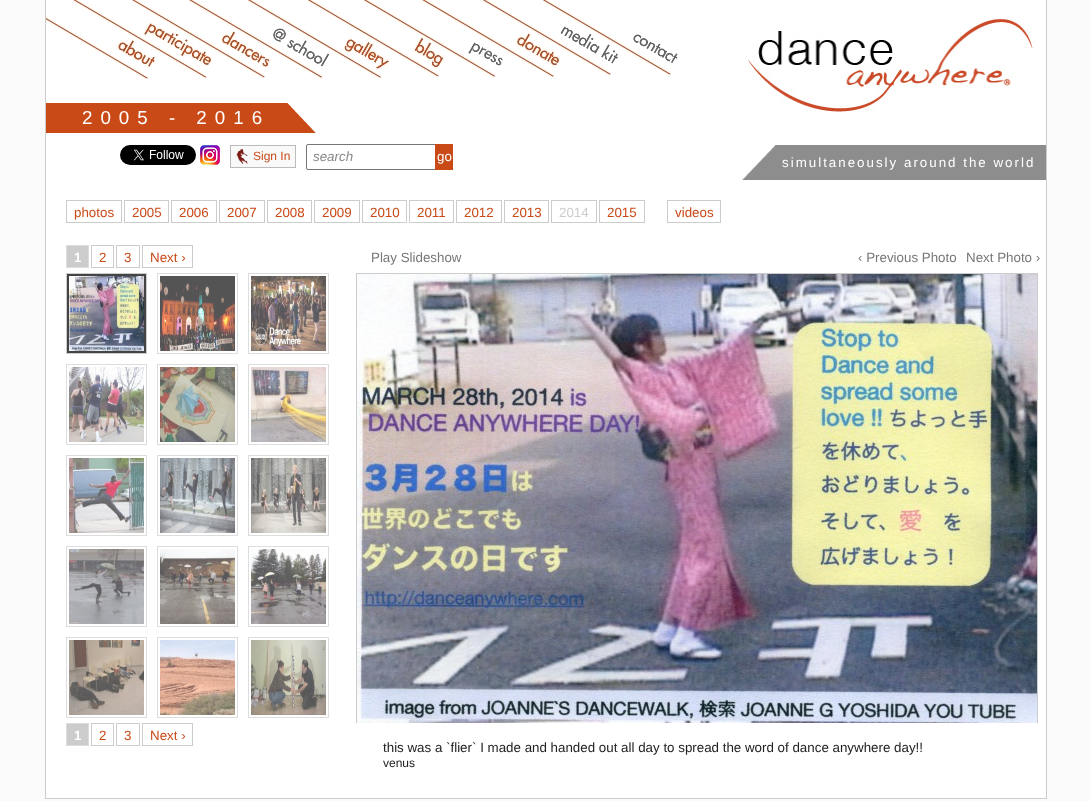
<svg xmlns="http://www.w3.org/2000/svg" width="1091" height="801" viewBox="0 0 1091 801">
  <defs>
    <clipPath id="clip1"><rect x="346" y="273" width="700" height="450"/></clipPath>
  </defs>
  <rect width="100%" height="100%" fill="#fbfbfb"/>
  <rect x="46" y="0" width="1000" height="798" fill="#ffffff"/>
  <rect x="1046" y="0" width="1" height="799" fill="#cccccc"/>
  <rect x="45" y="798" width="1002" height="1" fill="#cccccc"/>
  <rect x="45" y="0" width="1" height="799" fill="#cccccc"/>
  <image x="46" y="0" width="632" height="80" href="img1.png"/>
  <image x="748" y="19" width="288" height="93" href="img2.png"/>
  <rect x="46" y="103" width="270" height="30" fill="#c94917"/>
  <image x="287" y="103" width="29" height="30" href="img3.png"/>
  <text x="82" y="124" font-family="Liberation Sans" font-size="18.75" letter-spacing="8" fill="#ffffff">2005 - 2016</text>
  <image x="120" y="145" width="76" height="20" href="img4.png"/>
  <image x="200" y="145" width="20" height="20" href="img5.png"/>
  <rect x="230.5" y="145.5" width="65" height="22" fill="#f9f9f9" stroke="#bbbbbb"/>
  <image x="236" y="149" width="12" height="15" href="img6.png"/>
  <text x="253" y="160" font-family="Liberation Sans" font-size="12" fill="#c94917">Sign In</text>
  <rect x="306.5" y="144.5" width="131" height="25" rx="1.5" fill="none" stroke="#767676"/>
  <text x="313" y="161" font-family="Liberation Sans" font-size="13.35" font-style="italic" fill="#888888">search</text>
  <rect x="435" y="144" width="18" height="26" fill="#c94917"/>
  <text x="437" y="161" font-family="Liberation Sans" font-size="13.35" fill="#ffffff">go</text>
  <rect x="742" y="145" width="304" height="35" fill="#8d8d8d"/>
  <image x="742" y="145" width="33" height="35" href="img7.png"/>
  <text x="782" y="167" font-family="Liberation Sans" font-size="13.35" letter-spacing="2" fill="#ffffff">simultaneously around the world</text>
  <rect x="66.5" y="200.5" width="55" height="22" fill="none" stroke="#cccccc"/>
  <text x="74" y="217" font-family="Liberation Sans" font-size="13.35" fill="#c94917">photos</text>
  <rect x="124.5" y="200.5" width="44" height="22" fill="none" stroke="#cccccc"/>
  <text x="132" y="217" font-family="Liberation Sans" font-size="13.35" fill="#c94917">2005</text>
  <rect x="171.5" y="200.5" width="45" height="22" fill="none" stroke="#cccccc"/>
  <text x="179" y="217" font-family="Liberation Sans" font-size="13.35" fill="#c94917">2006</text>
  <rect x="219.5" y="200.5" width="45" height="22" fill="none" stroke="#cccccc"/>
  <text x="227" y="217" font-family="Liberation Sans" font-size="13.35" fill="#c94917">2007</text>
  <rect x="267.5" y="200.5" width="44" height="22" fill="none" stroke="#cccccc"/>
  <text x="275" y="217" font-family="Liberation Sans" font-size="13.35" fill="#c94917">2008</text>
  <rect x="314.5" y="200.5" width="45" height="22" fill="none" stroke="#cccccc"/>
  <text x="322" y="217" font-family="Liberation Sans" font-size="13.35" fill="#c94917">2009</text>
  <rect x="362.5" y="200.5" width="44" height="22" fill="none" stroke="#cccccc"/>
  <text x="370" y="217" font-family="Liberation Sans" font-size="13.35" fill="#c94917">2010</text>
  <rect x="409.5" y="200.5" width="44" height="22" fill="none" stroke="#cccccc"/>
  <text x="417" y="217" font-family="Liberation Sans" font-size="13.35" fill="#c94917">2011</text>
  <rect x="456.5" y="200.5" width="45" height="22" fill="none" stroke="#cccccc"/>
  <text x="464" y="217" font-family="Liberation Sans" font-size="13.35" fill="#c94917">2012</text>
  <rect x="504.5" y="200.5" width="44" height="22" fill="none" stroke="#cccccc"/>
  <text x="512" y="217" font-family="Liberation Sans" font-size="13.35" fill="#c94917">2013</text>
  <rect x="551.5" y="200.5" width="45" height="22" fill="none" stroke="#cccccc"/>
  <text x="559" y="217" font-family="Liberation Sans" font-size="13.35" fill="#cccccc">2014</text>
  <rect x="599.5" y="200.5" width="45" height="22" fill="none" stroke="#cccccc"/>
  <text x="607" y="217" font-family="Liberation Sans" font-size="13.35" fill="#c94917">2015</text>
  <rect x="667.5" y="200.5" width="53" height="22" fill="none" stroke="#cccccc"/>
  <text x="675" y="217" font-family="Liberation Sans" font-size="13.35" fill="#c94917">videos</text>
  <rect x="66.5" y="245.5" width="22" height="22" fill="#cccccc" stroke="#dddddd"/>
  <text x="74" y="262" font-family="Liberation Sans" font-size="13.35" font-weight="bold" fill="#ffffff">1</text>
  <rect x="91.5" y="245.5" width="22" height="22" fill="none" stroke="#cccccc"/>
  <text x="99" y="262" font-family="Liberation Sans" font-size="13.35" fill="#c94917">2</text>
  <rect x="116.5" y="245.5" width="23" height="22" fill="none" stroke="#cccccc"/>
  <text x="124" y="262" font-family="Liberation Sans" font-size="13.35" fill="#c94917">3</text>
  <rect x="142.5" y="245.5" width="50" height="22" fill="none" stroke="#cccccc"/>
  <text x="150" y="262" font-family="Liberation Sans" font-size="13.35" fill="#c94917">Next ›</text>
  <rect x="66.5" y="273.5" width="80" height="80" fill="#444444" stroke="#cccccc"/>
  <image x="69" y="276" width="75" height="75" href="img8.png"/>
  <rect x="157.5" y="273.5" width="80" height="80" fill="none" stroke="#dddddd"/>
  <image x="160" y="276" width="75" height="75" href="img9.png"/>
  <rect x="248.5" y="273.5" width="80" height="80" fill="none" stroke="#dddddd"/>
  <image x="251" y="276" width="75" height="75" href="img10.png"/>
  <rect x="66.5" y="364.5" width="80" height="80" fill="none" stroke="#dddddd"/>
  <image x="69" y="367" width="75" height="75" href="img11.png"/>
  <rect x="157.5" y="364.5" width="80" height="80" fill="none" stroke="#dddddd"/>
  <image x="160" y="367" width="75" height="75" href="img12.png"/>
  <rect x="248.5" y="364.5" width="80" height="80" fill="none" stroke="#dddddd"/>
  <image x="251" y="367" width="75" height="75" href="img13.png"/>
  <rect x="66.5" y="455.5" width="80" height="80" fill="none" stroke="#dddddd"/>
  <image x="69" y="458" width="75" height="75" href="img14.png"/>
  <rect x="157.5" y="455.5" width="80" height="80" fill="none" stroke="#dddddd"/>
  <image x="160" y="458" width="75" height="75" href="img15.png"/>
  <rect x="248.5" y="455.5" width="80" height="80" fill="none" stroke="#dddddd"/>
  <image x="251" y="458" width="75" height="75" href="img16.png"/>
  <rect x="66.5" y="546.5" width="80" height="80" fill="none" stroke="#dddddd"/>
  <image x="69" y="549" width="75" height="75" href="img17.png"/>
  <rect x="157.5" y="546.5" width="80" height="80" fill="none" stroke="#dddddd"/>
  <image x="160" y="549" width="75" height="75" href="img18.png"/>
  <rect x="248.5" y="546.5" width="80" height="80" fill="none" stroke="#dddddd"/>
  <image x="251" y="549" width="75" height="75" href="img19.png"/>
  <rect x="66.5" y="637.5" width="80" height="80" fill="none" stroke="#dddddd"/>
  <image x="69" y="640" width="75" height="75" href="img20.png"/>
  <rect x="157.5" y="637.5" width="80" height="80" fill="none" stroke="#dddddd"/>
  <image x="160" y="640" width="75" height="75" href="img21.png"/>
  <rect x="248.5" y="637.5" width="80" height="80" fill="none" stroke="#dddddd"/>
  <image x="251" y="640" width="75" height="75" href="img22.png"/>
  <rect x="66.5" y="723.5" width="22" height="22" fill="#cccccc" stroke="#dddddd"/>
  <text x="74" y="740" font-family="Liberation Sans" font-size="13.35" font-weight="bold" fill="#ffffff">1</text>
  <rect x="91.5" y="723.5" width="22" height="22" fill="none" stroke="#cccccc"/>
  <text x="99" y="740" font-family="Liberation Sans" font-size="13.35" fill="#c94917">2</text>
  <rect x="116.5" y="723.5" width="23" height="22" fill="none" stroke="#cccccc"/>
  <text x="124" y="740" font-family="Liberation Sans" font-size="13.35" fill="#c94917">3</text>
  <rect x="142.5" y="723.5" width="50" height="22" fill="none" stroke="#cccccc"/>
  <text x="150" y="740" font-family="Liberation Sans" font-size="13.35" fill="#c94917">Next ›</text>
  <text x="371" y="262" font-family="Liberation Sans" font-size="13.35" fill="#777777">Play Slideshow</text>
  <text x="858" y="262" font-family="Liberation Sans" font-size="13.35" fill="#777777">‹ Previous Photo</text>
  <text x="966" y="262" font-family="Liberation Sans" font-size="13.35" fill="#777777">Next Photo ›</text>
  <g clip-path="url(#clip1)">
    <rect x="356.5" y="273.5" width="681" height="451" fill="none" stroke="#cccccc"/>
  </g>
  <image x="357" y="274" width="680" height="449" href="img23.png"/>
  <text x="383" y="752" font-family="Liberation Sans" font-size="13.35" fill="#222222">this was a `flier` I made and handed out all day to spread the word of dance anywhere day!!</text>
  <text x="383" y="767" font-family="Liberation Sans" font-size="12" fill="#222222">venus</text>
</svg>
